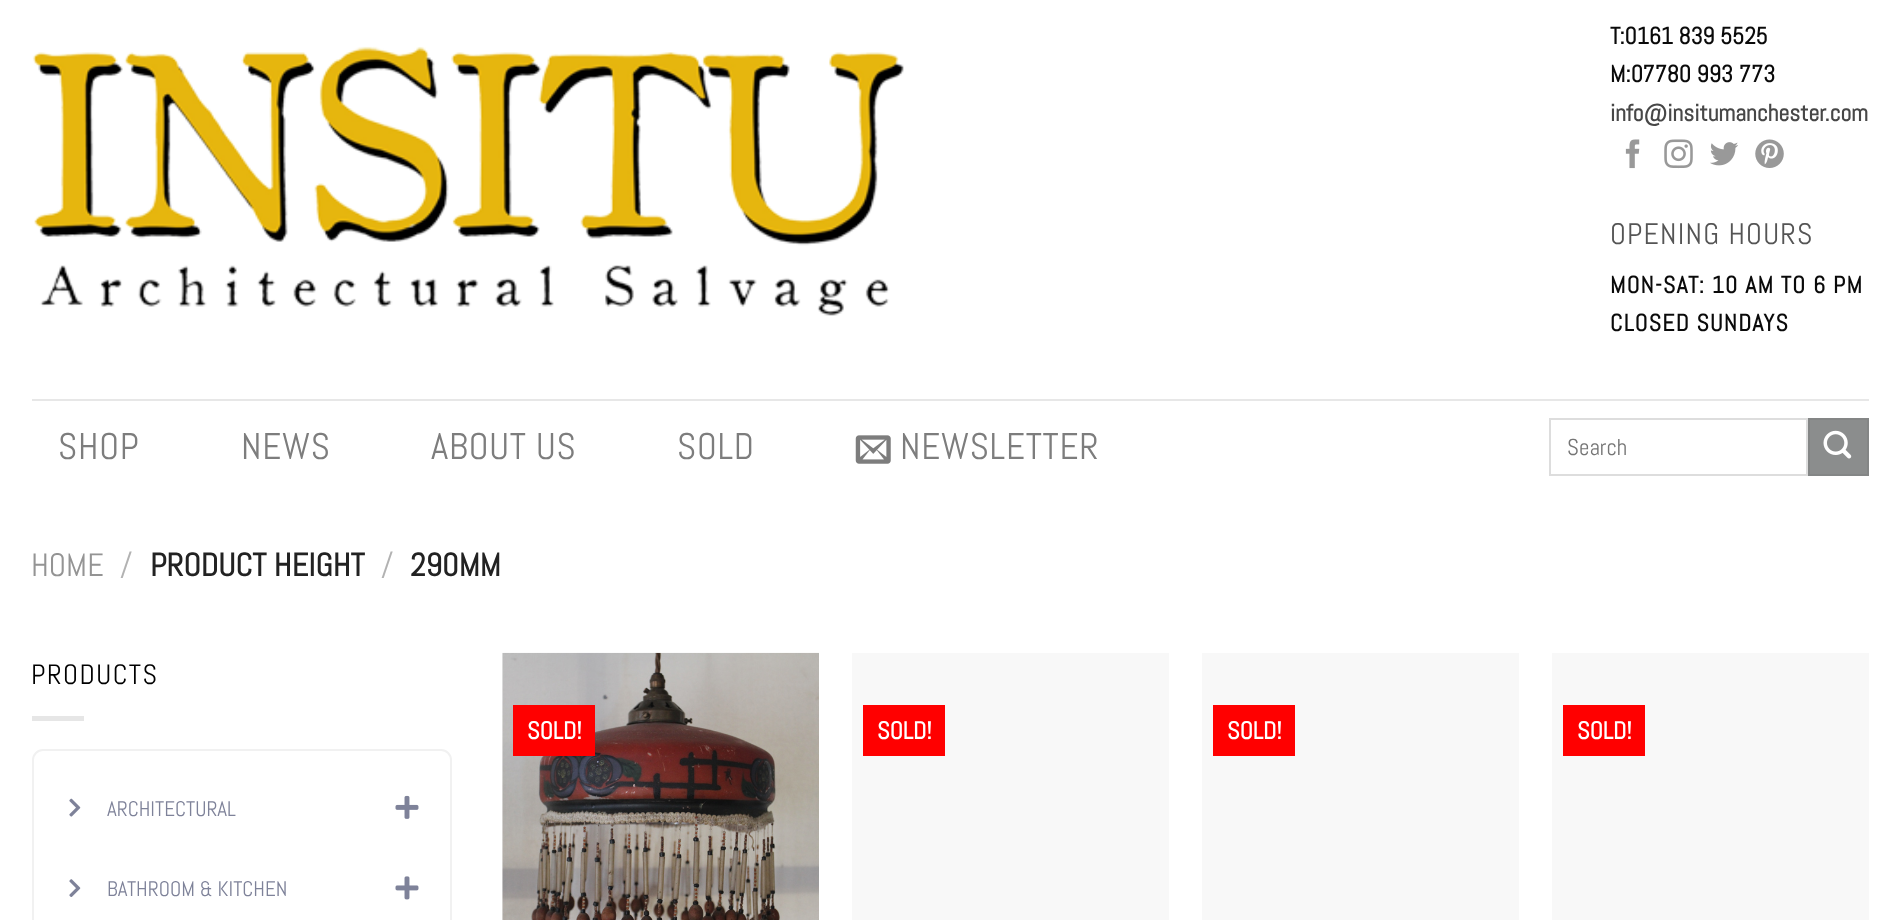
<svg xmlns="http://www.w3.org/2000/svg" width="1898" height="920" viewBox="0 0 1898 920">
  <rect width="100%" height="100%" fill="#ffffff"/>
  <image x="32" y="46" width="872" height="270" href="img1.png"/>
  <text x="1610" y="44" font-family="Abel" font-size="23.75" font-weight="bold" fill="#0a0a0a">T:0161 839 5525</text>
  <text x="1610" y="82" font-family="Abel" font-size="23.75" font-weight="bold" fill="#0a0a0a">M:07780 993 773</text>
  <text x="1610" y="121" font-family="Abel" font-size="23.75" font-weight="bold" fill="#474747">info@insitumanchester.com</text>
  <image x="1625" y="139" width="15" height="30" href="img2.png"/>
  <image x="1664" y="139" width="29" height="30" href="img3.png"/>
  <image x="1710" y="142" width="28" height="24" href="img4.png"/>
  <image x="1755" y="139" width="29" height="29" href="img5.png"/>
  <text x="1610" y="244" font-family="Abel" font-size="29.75" letter-spacing="1.2" fill="#555555">OPENING HOURS</text>
  <text x="1610" y="293" font-family="Abel" font-size="23.75" font-weight="bold" letter-spacing="1.2" fill="#0a0a0a">MON-SAT: 10 AM TO 6 PM</text>
  <text x="1610" y="331" font-family="Abel" font-size="23.75" font-weight="bold" letter-spacing="1.2" fill="#0a0a0a">CLOSED SUNDAYS</text>
  <rect x="32" y="399" width="1837" height="2" fill="#e7e7e7"/>
  <text x="58" y="459" font-family="Abel" font-size="37" letter-spacing="0.75" fill="#7d7d7d">SHOP</text>
  <text x="241" y="459" font-family="Abel" font-size="37" letter-spacing="0.75" fill="#7d7d7d">NEWS</text>
  <text x="431" y="459" font-family="Abel" font-size="37" letter-spacing="0.75" fill="#7d7d7d">ABOUT US</text>
  <text x="677" y="459" font-family="Abel" font-size="37" letter-spacing="0.75" fill="#7d7d7d">SOLD</text>
  <image x="855" y="435" width="36" height="29" href="img6.png"/>
  <text x="900" y="459" font-family="Abel" font-size="37" letter-spacing="0.75" fill="#7d7d7d">NEWSLETTER</text>
  <rect x="1550" y="419" width="257" height="56" fill="none" stroke="#dddddd" stroke-width="2"/>
  <text x="1567" y="455" font-family="Abel" font-size="23" fill="#757575">Search</text>
  <rect x="1809" y="419" width="59" height="56" fill="#8b8d8d" stroke="#848686" stroke-width="2"/>
  <image x="1823" y="430" width="29" height="29" href="img7.png"/>
  <text x="31" y="576" font-family="Abel" font-size="32.25" fill="#949494">HOME</text>
  <text x="120" y="576" font-family="Abel" font-size="32.25" fill="#b2b2b2">/</text>
  <text x="150" y="576" font-family="Abel" font-size="32.25" font-weight="bold" fill="#222222">PRODUCT HEIGHT</text>
  <text x="381" y="576" font-family="Abel" font-size="32.25" fill="#b2b2b2">/</text>
  <text x="410" y="576" font-family="Abel" font-size="32.25" font-weight="bold" fill="#222222">290MM</text>
  <text x="31" y="684" font-family="Abel" font-size="28" letter-spacing="1.5" fill="#000000">PRODUCTS</text>
  <rect x="32" y="716" width="52" height="5" fill="#e6e6e6"/>
  <rect x="33" y="750" width="418" height="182" rx="10" fill="none" stroke="#f1f1f1" stroke-width="2"/>
  <image x="69" y="798" width="12" height="19" href="img8.png"/>
  <text x="107" y="816" font-family="Abel" font-size="21" fill="#7e8299">ARCHITECTURAL</text>
  <image x="395" y="795" width="24" height="24" href="img9.png"/>
  <image x="69" y="879" width="12" height="18" href="img10.png"/>
  <text x="107" y="896" font-family="Abel" font-size="21" fill="#7e8299">BATHROOM &amp; KITCHEN</text>
  <image x="395" y="876" width="24" height="24" href="img11.png"/>
  <image x="502" y="652" width="317" height="268" href="img12.png"/>
  <rect x="513" y="705" width="82" height="51" fill="#ff0000"/>
  <text x="527" y="739" font-family="Abel" font-size="24.5" font-weight="bold" fill="#ffffff">SOLD!</text>
  <rect x="852" y="653" width="317" height="267" fill="#f8f8f8"/>
  <rect x="863" y="705" width="82" height="51" fill="#ff0000"/>
  <text x="877" y="739" font-family="Abel" font-size="24.5" font-weight="bold" fill="#ffffff">SOLD!</text>
  <rect x="1202" y="653" width="317" height="267" fill="#f8f8f8"/>
  <rect x="1213" y="705" width="82" height="51" fill="#ff0000"/>
  <text x="1227" y="739" font-family="Abel" font-size="24.5" font-weight="bold" fill="#ffffff">SOLD!</text>
  <rect x="1552" y="653" width="317" height="267" fill="#f8f8f8"/>
  <rect x="1563" y="705" width="82" height="51" fill="#ff0000"/>
  <text x="1577" y="739" font-family="Abel" font-size="24.5" font-weight="bold" fill="#ffffff">SOLD!</text>
</svg>
